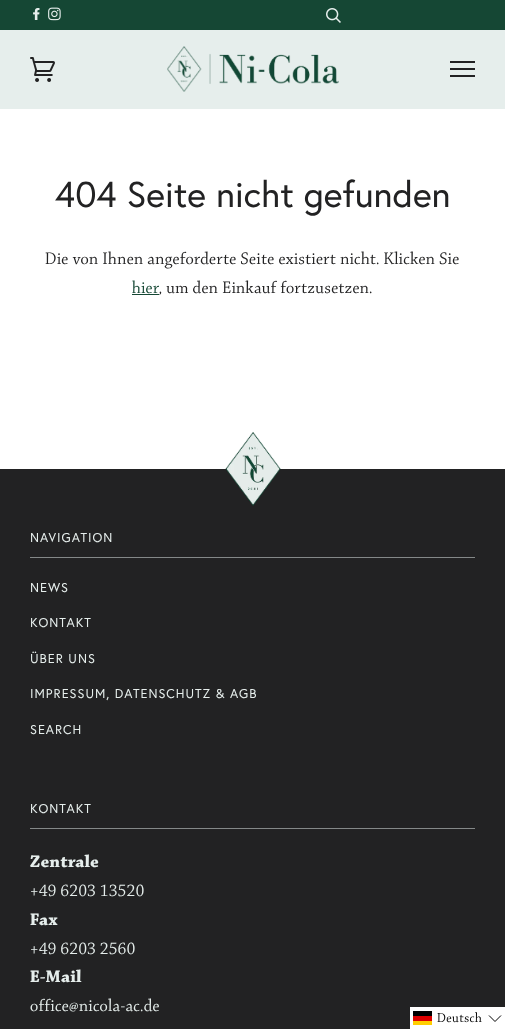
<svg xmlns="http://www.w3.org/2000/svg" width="505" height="1029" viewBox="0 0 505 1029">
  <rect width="100%" height="100%" fill="#ffffff"/>
  <rect x="0" y="0" width="505" height="30" fill="#154734"/>
  <image x="33" y="8" width="7" height="12" href="img1.png"/>
  <image x="48" y="7" width="13" height="14" href="img2.png"/>
  <image x="326" y="8" width="15" height="15" href="img3.png"/>
  <rect x="0" y="30" width="505" height="79" fill="#e6eeec"/>
  <image x="30" y="57" width="25" height="25" href="img4.png"/>
  <image x="167" y="46" width="172" height="46" href="img5.png"/>
  <rect x="450" y="61" width="25" height="2" fill="#222223"/>
  <rect x="450" y="68" width="25" height="2" fill="#222223"/>
  <rect x="450" y="75" width="25" height="2" fill="#222223"/>
  <text x="55" y="207" font-family="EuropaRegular" font-size="36" fill="#222223">404 Seite nicht gefunden</text>
  <text x="45" y="264" font-family="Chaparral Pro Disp" font-size="18" letter-spacing="0.5" fill="#222223">Die von Ihnen angeforderte Seite existiert nicht. Klicken Sie</text>
  <text x="132" y="293" font-family="Chaparral Pro Disp" font-size="18" letter-spacing="0.5" fill="#154734">hier</text>
  <rect x="132" y="294" width="27" height="1" fill="#154734"/>
  <text x="159" y="293" font-family="Chaparral Pro Disp" font-size="18" letter-spacing="0.5" fill="#222223">, um den Einkauf fortzusetzen.</text>
  <rect x="0" y="469" width="505" height="560" fill="#222223"/>
  <image x="225" y="432" width="56" height="74" href="img6.png"/>
  <text x="30" y="542" font-family="EuropaRegular" font-size="12.75" letter-spacing="1" fill="#e6eeec">NAVIGATION</text>
  <rect x="30" y="557" width="445" height="1" fill="#848888"/>
  <text x="30" y="592" font-family="EuropaRegular" font-size="12.75" letter-spacing="1" fill="#e6eeec">NEWS</text>
  <text x="30" y="627" font-family="EuropaRegular" font-size="12.75" letter-spacing="1" fill="#e6eeec">KONTAKT</text>
  <text x="30" y="663" font-family="EuropaRegular" font-size="12.75" letter-spacing="1" fill="#e6eeec">ÜBER UNS</text>
  <text x="30" y="698" font-family="EuropaRegular" font-size="12.75" letter-spacing="1" fill="#e6eeec">IMPRESSUM, DATENSCHUTZ &amp; AGB</text>
  <text x="30" y="734" font-family="EuropaRegular" font-size="12.75" letter-spacing="1" fill="#e6eeec">SEARCH</text>
  <text x="30" y="813" font-family="EuropaRegular" font-size="12.75" letter-spacing="1" fill="#e6eeec">KONTAKT</text>
  <rect x="30" y="828" width="445" height="1" fill="#848888"/>
  <text x="30" y="867" font-family="Chaparral Pro Disp" font-size="18" font-weight="bold" letter-spacing="0.5" fill="#e6eeec">Zentrale</text>
  <text x="30" y="896" font-family="Chaparral Pro Disp" font-size="18" letter-spacing="0.5" fill="#e6eeec">+49 6203 13520</text>
  <text x="30" y="925" font-family="Chaparral Pro Disp" font-size="18" font-weight="bold" letter-spacing="0.5" fill="#e6eeec">Fax</text>
  <text x="30" y="954" font-family="Chaparral Pro Disp" font-size="18" letter-spacing="0.5" fill="#e6eeec">+49 6203 2560</text>
  <text x="30" y="982" font-family="Chaparral Pro Disp" font-size="18" font-weight="bold" letter-spacing="0.5" fill="#e6eeec">E-Mail</text>
  <text x="30" y="1011" font-family="Chaparral Pro Disp" font-size="18" letter-spacing="0.5" fill="#e6eeec">office@nicola-ac.de</text>
  <rect x="410" y="1007" width="95" height="22" fill="#ffffff"/>
  <rect x="413" y="1021" width="19" height="4" fill="#ffce00"/>
  <rect x="413" y="1011" width="19" height="5" fill="#000000"/>
  <rect x="413" y="1016" width="19" height="5" fill="#dd0000"/>
  <text x="437" y="1022" font-family="Chaparral Pro Disp" font-size="14" letter-spacing="0.5" fill="#000000">Deutsch</text>
  <path d="M489 1015.5L495 1021.5L501 1015.5" fill="none" stroke="#000000"/>
</svg>
